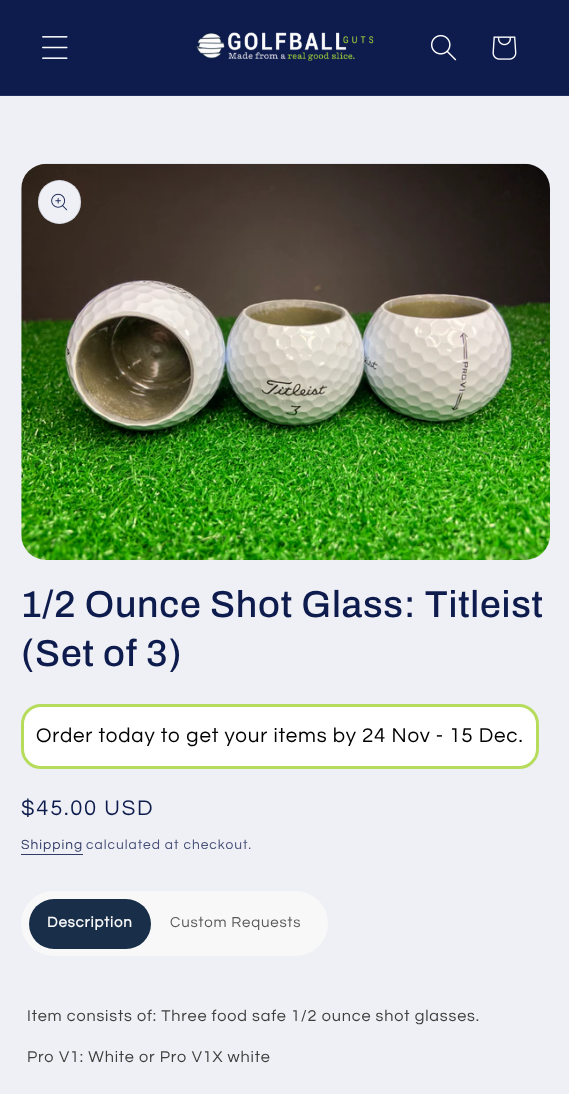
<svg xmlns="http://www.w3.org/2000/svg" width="569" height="1094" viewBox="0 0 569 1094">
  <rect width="100%" height="100%" fill="#eff0f5"/>
  <rect x="0" y="0" width="569" height="95" fill="#0e1b4d"/>
  <rect x="0" y="95" width="569" height="1" fill="#212d5b"/>
  <image x="42" y="36" width="26" height="23" href="img1.png"/>
  <image x="196" y="32" width="178" height="29" href="img2.png"/>
  <image x="430" y="34" width="27" height="27" href="img3.png"/>
  <image x="492" y="36" width="25" height="24" href="img4.png"/>
  <image x="21" y="163" width="529" height="397" href="img5.png"/>
  <rect x="38" y="180" width="43" height="44" rx="21.5" fill="#eff0f5"/>
  <rect x="38.5" y="180.5" width="42" height="43" rx="21" fill="none" stroke="#0e1b4d" stroke-opacity="0.1"/>
  <image x="51" y="193" width="17" height="18" href="img6.png"/>
  <text x="21" y="617" font-family="Archivo" font-size="37.5" font-weight="500" letter-spacing="0.75" fill="#0e1b4d">1/2 Ounce Shot Glass: Titleist</text>
  <text x="21" y="666" font-family="Archivo" font-size="37.5" font-weight="500" letter-spacing="0.75" fill="#0e1b4d">(Set of 3)</text>
  <rect x="22.5" y="705.5" width="515" height="62" rx="18.5" fill="#ffffff" stroke="#b6dc5c" stroke-width="3"/>
  <text x="36" y="742" font-family="Questrial" font-size="20.6" letter-spacing="0.83" fill="#000000">Order today to get your items by 24 Nov - 15 Dec.</text>
  <text x="21" y="815" font-family="Questrial" font-size="22" letter-spacing="1.75" fill="#0e1b4d">$45.00 USD</text>
  <text x="21" y="849" font-family="Questrial" font-size="13.75" letter-spacing="1" fill="#303b66">Shipping</text>
  <rect x="21" y="854" width="62" height="1" fill="#303b66"/>
  <text x="86" y="849" font-family="Questrial" font-size="13.75" letter-spacing="1" fill="#465077">calculated at checkout.</text>
  <rect x="21" y="891" width="307" height="65" rx="32.5" fill="#f8f8f8"/>
  <rect x="29" y="899" width="122" height="50" rx="25" fill="#182e49"/>
  <text x="47" y="927" font-family="Questrial" font-size="15" font-weight="bold" letter-spacing="0.83" fill="#f8f8f8">Description</text>
  <text x="170" y="927" font-family="Questrial" font-size="15" letter-spacing="0.83" fill="#585858">Custom Requests</text>
  <text x="27" y="1021" font-family="Questrial" font-size="16.25" letter-spacing="0.83" fill="#3e3e3e">Item consists of: Three food safe 1/2 ounce shot glasses.</text>
  <text x="27" y="1062" font-family="Questrial" font-size="16.25" letter-spacing="0.83" fill="#3e3e3e">Pro V1: White or Pro V1X white</text>
</svg>
